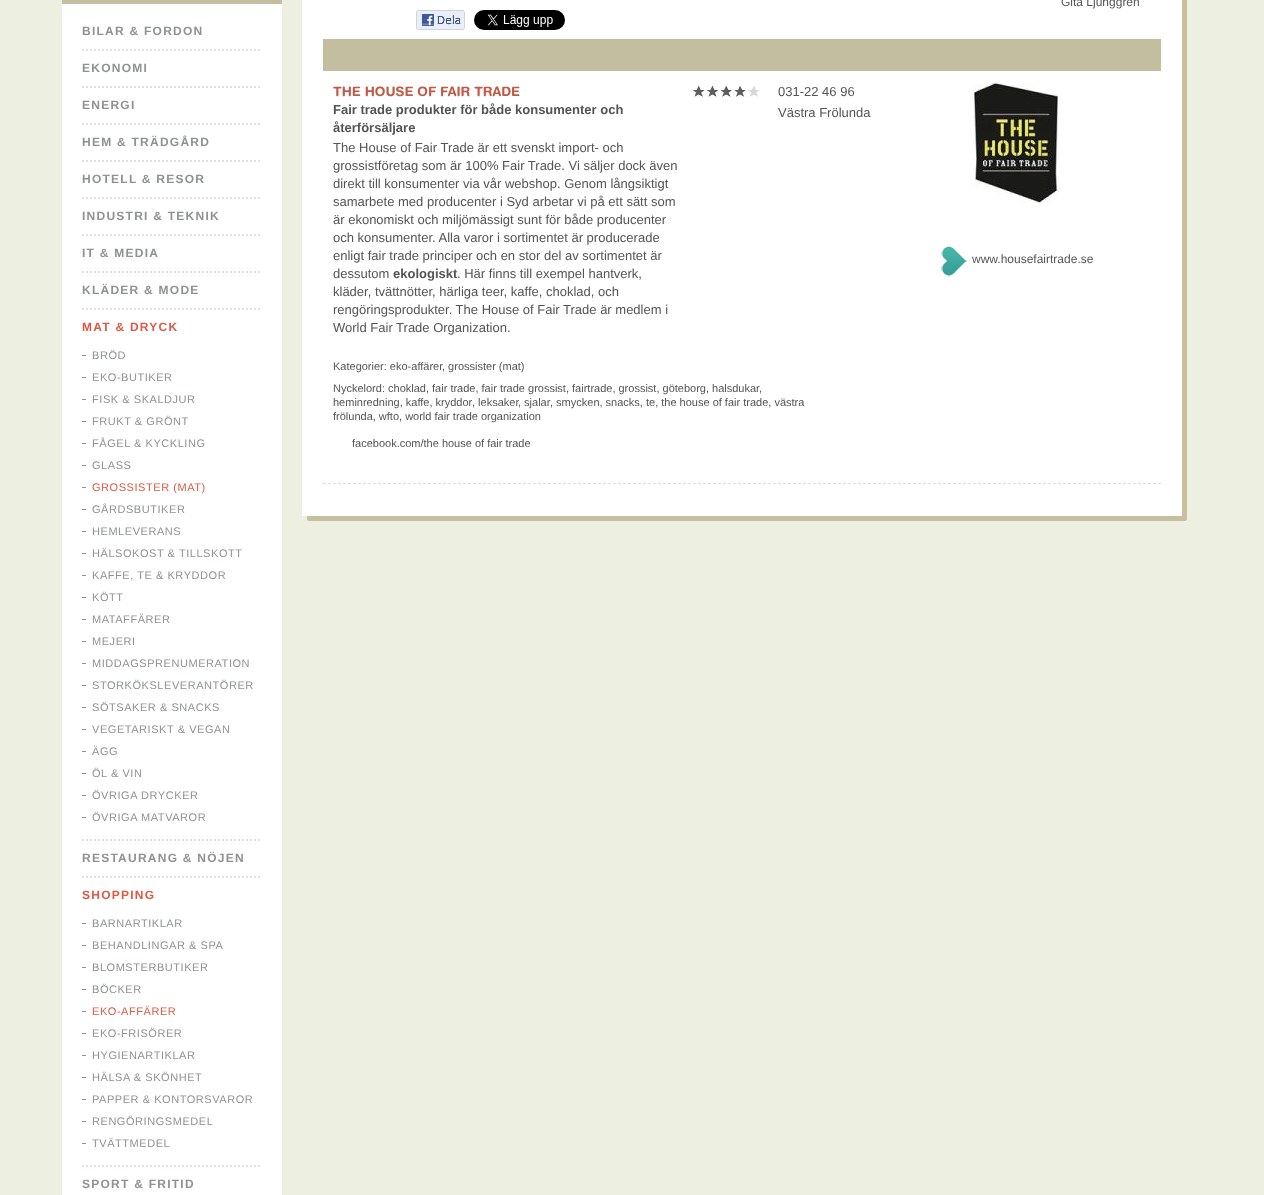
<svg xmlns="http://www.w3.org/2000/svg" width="1264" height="1195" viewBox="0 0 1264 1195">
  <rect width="100%" height="100%" fill="#edefe0"/>
  <rect x="62" y="4" width="220" height="1191" fill="#ffffff"/>
  <rect x="62" y="0" width="220" height="4" fill="#c4bea1"/>
  <text x="82" y="35" font-family="Liberation Sans" font-size="12" font-weight="bold" letter-spacing="1.25" fill="#8f9292">BILAR &amp; FORDON</text>
  <path d="M82 50H262" fill="none" stroke="#dee2e3" stroke-width="2" stroke-dasharray="2 2"/>
  <text x="82" y="72" font-family="Liberation Sans" font-size="12" font-weight="bold" letter-spacing="1.25" fill="#8f9292">EKONOMI</text>
  <path d="M82 87H262" fill="none" stroke="#dee2e3" stroke-width="2" stroke-dasharray="2 2"/>
  <text x="82" y="109" font-family="Liberation Sans" font-size="12" font-weight="bold" letter-spacing="1.25" fill="#8f9292">ENERGI</text>
  <path d="M82 124H262" fill="none" stroke="#dee2e3" stroke-width="2" stroke-dasharray="2 2"/>
  <text x="82" y="146" font-family="Liberation Sans" font-size="12" font-weight="bold" letter-spacing="1.25" fill="#8f9292">HEM &amp; TRÄDGÅRD</text>
  <path d="M82 161H262" fill="none" stroke="#dee2e3" stroke-width="2" stroke-dasharray="2 2"/>
  <text x="82" y="183" font-family="Liberation Sans" font-size="12" font-weight="bold" letter-spacing="1.25" fill="#8f9292">HOTELL &amp; RESOR</text>
  <path d="M82 198H262" fill="none" stroke="#dee2e3" stroke-width="2" stroke-dasharray="2 2"/>
  <text x="82" y="220" font-family="Liberation Sans" font-size="12" font-weight="bold" letter-spacing="1.25" fill="#8f9292">INDUSTRI &amp; TEKNIK</text>
  <path d="M82 235H262" fill="none" stroke="#dee2e3" stroke-width="2" stroke-dasharray="2 2"/>
  <text x="82" y="257" font-family="Liberation Sans" font-size="12" font-weight="bold" letter-spacing="1.25" fill="#8f9292">IT &amp; MEDIA</text>
  <path d="M82 272H262" fill="none" stroke="#dee2e3" stroke-width="2" stroke-dasharray="2 2"/>
  <text x="82" y="294" font-family="Liberation Sans" font-size="12" font-weight="bold" letter-spacing="1.25" fill="#8f9292">KLÄDER &amp; MODE</text>
  <path d="M82 309H262" fill="none" stroke="#dee2e3" stroke-width="2" stroke-dasharray="2 2"/>
  <text x="82" y="331" font-family="Liberation Sans" font-size="12" font-weight="bold" letter-spacing="1.25" fill="#dc5943">MAT &amp; DRYCK</text>
  <rect x="82" y="355" width="4" height="1" fill="#8f9292"/>
  <text x="92" y="359" font-family="Liberation Sans" font-size="11" letter-spacing="0.55" fill="#8f9292">BRÖD</text>
  <rect x="82" y="377" width="4" height="1" fill="#8f9292"/>
  <text x="92" y="381" font-family="Liberation Sans" font-size="11" letter-spacing="0.55" fill="#8f9292">EKO-BUTIKER</text>
  <rect x="82" y="399" width="4" height="1" fill="#8f9292"/>
  <text x="92" y="403" font-family="Liberation Sans" font-size="11" letter-spacing="0.55" fill="#8f9292">FISK &amp; SKALDJUR</text>
  <rect x="82" y="421" width="4" height="1" fill="#8f9292"/>
  <text x="92" y="425" font-family="Liberation Sans" font-size="11" letter-spacing="0.55" fill="#8f9292">FRUKT &amp; GRÖNT</text>
  <rect x="82" y="443" width="4" height="1" fill="#8f9292"/>
  <text x="92" y="447" font-family="Liberation Sans" font-size="11" letter-spacing="0.55" fill="#8f9292">FÅGEL &amp; KYCKLING</text>
  <rect x="82" y="465" width="4" height="1" fill="#8f9292"/>
  <text x="92" y="469" font-family="Liberation Sans" font-size="11" letter-spacing="0.55" fill="#8f9292">GLASS</text>
  <rect x="82" y="487" width="4" height="1" fill="#8f9292"/>
  <text x="92" y="491" font-family="Liberation Sans" font-size="11" letter-spacing="0.55" fill="#dc5943">GROSSISTER (MAT)</text>
  <rect x="82" y="509" width="4" height="1" fill="#8f9292"/>
  <text x="92" y="513" font-family="Liberation Sans" font-size="11" letter-spacing="0.55" fill="#8f9292">GÅRDSBUTIKER</text>
  <rect x="82" y="531" width="4" height="1" fill="#8f9292"/>
  <text x="92" y="535" font-family="Liberation Sans" font-size="11" letter-spacing="0.55" fill="#8f9292">HEMLEVERANS</text>
  <rect x="82" y="553" width="4" height="1" fill="#8f9292"/>
  <text x="92" y="557" font-family="Liberation Sans" font-size="11" letter-spacing="0.55" fill="#8f9292">HÄLSOKOST &amp; TILLSKOTT</text>
  <rect x="82" y="575" width="4" height="1" fill="#8f9292"/>
  <text x="92" y="579" font-family="Liberation Sans" font-size="11" letter-spacing="0.55" fill="#8f9292">KAFFE, TE &amp; KRYDDOR</text>
  <rect x="82" y="597" width="4" height="1" fill="#8f9292"/>
  <text x="92" y="601" font-family="Liberation Sans" font-size="11" letter-spacing="0.55" fill="#8f9292">KÖTT</text>
  <rect x="82" y="619" width="4" height="1" fill="#8f9292"/>
  <text x="92" y="623" font-family="Liberation Sans" font-size="11" letter-spacing="0.55" fill="#8f9292">MATAFFÄRER</text>
  <rect x="82" y="641" width="4" height="1" fill="#8f9292"/>
  <text x="92" y="645" font-family="Liberation Sans" font-size="11" letter-spacing="0.55" fill="#8f9292">MEJERI</text>
  <rect x="82" y="663" width="4" height="1" fill="#8f9292"/>
  <text x="92" y="667" font-family="Liberation Sans" font-size="11" letter-spacing="0.55" fill="#8f9292">MIDDAGSPRENUMERATION</text>
  <rect x="82" y="685" width="4" height="1" fill="#8f9292"/>
  <text x="92" y="689" font-family="Liberation Sans" font-size="11" letter-spacing="0.55" fill="#8f9292">STORKÖKSLEVERANTÖRER</text>
  <rect x="82" y="707" width="4" height="1" fill="#8f9292"/>
  <text x="92" y="711" font-family="Liberation Sans" font-size="11" letter-spacing="0.55" fill="#8f9292">SÖTSAKER &amp; SNACKS</text>
  <rect x="82" y="729" width="4" height="1" fill="#8f9292"/>
  <text x="92" y="733" font-family="Liberation Sans" font-size="11" letter-spacing="0.55" fill="#8f9292">VEGETARISKT &amp; VEGAN</text>
  <rect x="82" y="751" width="4" height="1" fill="#8f9292"/>
  <text x="92" y="755" font-family="Liberation Sans" font-size="11" letter-spacing="0.55" fill="#8f9292">ÄGG</text>
  <rect x="82" y="773" width="4" height="1" fill="#8f9292"/>
  <text x="92" y="777" font-family="Liberation Sans" font-size="11" letter-spacing="0.55" fill="#8f9292">ÖL &amp; VIN</text>
  <rect x="82" y="795" width="4" height="1" fill="#8f9292"/>
  <text x="92" y="799" font-family="Liberation Sans" font-size="11" letter-spacing="0.55" fill="#8f9292">ÖVRIGA DRYCKER</text>
  <rect x="82" y="817" width="4" height="1" fill="#8f9292"/>
  <text x="92" y="821" font-family="Liberation Sans" font-size="11" letter-spacing="0.55" fill="#8f9292">ÖVRIGA MATVAROR</text>
  <path d="M82 840H262" fill="none" stroke="#dee2e3" stroke-width="2" stroke-dasharray="2 2"/>
  <text x="82" y="862" font-family="Liberation Sans" font-size="12" font-weight="bold" letter-spacing="1.25" fill="#8f9292">RESTAURANG &amp; NÖJEN</text>
  <path d="M82 877H262" fill="none" stroke="#dee2e3" stroke-width="2" stroke-dasharray="2 2"/>
  <text x="82" y="899" font-family="Liberation Sans" font-size="12" font-weight="bold" letter-spacing="1.25" fill="#dc5943">SHOPPING</text>
  <rect x="82" y="923" width="4" height="1" fill="#8f9292"/>
  <text x="92" y="927" font-family="Liberation Sans" font-size="11" letter-spacing="0.55" fill="#8f9292">BARNARTIKLAR</text>
  <rect x="82" y="945" width="4" height="1" fill="#8f9292"/>
  <text x="92" y="949" font-family="Liberation Sans" font-size="11" letter-spacing="0.55" fill="#8f9292">BEHANDLINGAR &amp; SPA</text>
  <rect x="82" y="967" width="4" height="1" fill="#8f9292"/>
  <text x="92" y="971" font-family="Liberation Sans" font-size="11" letter-spacing="0.55" fill="#8f9292">BLOMSTERBUTIKER</text>
  <rect x="82" y="989" width="4" height="1" fill="#8f9292"/>
  <text x="92" y="993" font-family="Liberation Sans" font-size="11" letter-spacing="0.55" fill="#8f9292">BÖCKER</text>
  <rect x="82" y="1011" width="4" height="1" fill="#8f9292"/>
  <text x="92" y="1015" font-family="Liberation Sans" font-size="11" letter-spacing="0.55" fill="#dc5943">EKO-AFFÄRER</text>
  <rect x="82" y="1033" width="4" height="1" fill="#8f9292"/>
  <text x="92" y="1037" font-family="Liberation Sans" font-size="11" letter-spacing="0.55" fill="#8f9292">EKO-FRISÖRER</text>
  <rect x="82" y="1055" width="4" height="1" fill="#8f9292"/>
  <text x="92" y="1059" font-family="Liberation Sans" font-size="11" letter-spacing="0.55" fill="#8f9292">HYGIENARTIKLAR</text>
  <rect x="82" y="1077" width="4" height="1" fill="#8f9292"/>
  <text x="92" y="1081" font-family="Liberation Sans" font-size="11" letter-spacing="0.55" fill="#8f9292">HÄLSA &amp; SKÖNHET</text>
  <rect x="82" y="1099" width="4" height="1" fill="#8f9292"/>
  <text x="92" y="1103" font-family="Liberation Sans" font-size="11" letter-spacing="0.55" fill="#8f9292">PAPPER &amp; KONTORSVAROR</text>
  <rect x="82" y="1121" width="4" height="1" fill="#8f9292"/>
  <text x="92" y="1125" font-family="Liberation Sans" font-size="11" letter-spacing="0.55" fill="#8f9292">RENGÖRINGSMEDEL</text>
  <rect x="82" y="1143" width="4" height="1" fill="#8f9292"/>
  <text x="92" y="1147" font-family="Liberation Sans" font-size="11" letter-spacing="0.55" fill="#8f9292">TVÄTTMEDEL</text>
  <path d="M82 1166H262" fill="none" stroke="#dee2e3" stroke-width="2" stroke-dasharray="2 2"/>
  <text x="82" y="1188" font-family="Liberation Sans" font-size="12" font-weight="bold" letter-spacing="1.25" fill="#8f9292">SPORT &amp; FRITID</text>
  <path d="M307 516V519C307 520 308 521 309 521H1185C1186 521 1187 520 1187 519V-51C1187-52 1186-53 1185-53H1182V514C1182 515 1181 516 1180 516Z" fill="#c8bfa1"/>
  <rect x="302" y="0" width="880" height="516" fill="#ffffff"/>
  <text x="1061" y="6" font-family="Liberation Sans" font-size="12" fill="#545454">Gita Ljunggren</text>
  <image x="416" y="10" width="49" height="20" href="img1.png"/>
  <image x="474" y="10" width="91" height="20" href="img2.png"/>
  <rect x="323" y="39" width="838" height="32" fill="#c4bea1"/>
  <text x="333" y="96" font-family="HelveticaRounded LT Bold" font-size="13" font-weight="bold" fill="#c15946">THE HOUSE OF FAIR TRADE</text>
  <text x="333" y="114" font-family="Liberation Sans" font-size="13" font-weight="bold" fill="#545454">Fair trade produkter för både konsumenter och</text>
  <text x="333" y="132" font-family="Liberation Sans" font-size="13" font-weight="bold" fill="#545454">återförsäljare</text>
  <text x="333" y="152" font-family="Liberation Sans" font-size="13" fill="#545454">The House of Fair Trade är ett svenskt import- och</text>
  <text x="333" y="170" font-family="Liberation Sans" font-size="13" fill="#545454">grossistföretag som är 100% Fair Trade. Vi säljer dock även</text>
  <text x="333" y="188" font-family="Liberation Sans" font-size="13" fill="#545454">direkt till konsumenter via vår webshop. Genom långsiktigt</text>
  <text x="333" y="206" font-family="Liberation Sans" font-size="13" fill="#545454">samarbete med producenter i Syd arbetar vi på ett sätt som</text>
  <text x="333" y="224" font-family="Liberation Sans" font-size="13" fill="#545454">är ekonomiskt och miljömässigt sunt för både producenter</text>
  <text x="333" y="242" font-family="Liberation Sans" font-size="13" fill="#545454">och konsumenter. Alla varor i sortimentet är producerade</text>
  <text x="333" y="260" font-family="Liberation Sans" font-size="13" fill="#545454">enligt fair trade principer och en stor del av sortimentet är</text>
  <text x="333" y="278" font-family="Liberation Sans" font-size="13" fill="#545454">dessutom</text>
  <text x="393" y="278" font-family="Liberation Sans" font-size="13" font-weight="bold" fill="#545454">ekologiskt</text>
  <text x="457" y="278" font-family="Liberation Sans" font-size="13" fill="#545454">. Här finns till exempel hantverk,</text>
  <text x="333" y="296" font-family="Liberation Sans" font-size="13" fill="#545454">kläder, tvättnötter, härliga teer, kaffe, choklad, och</text>
  <text x="333" y="314" font-family="Liberation Sans" font-size="13" fill="#545454">rengöringsprodukter. The House of Fair Trade är medlem i</text>
  <text x="333" y="332" font-family="Liberation Sans" font-size="13" fill="#545454">World Fair Trade Organization.</text>
  <image x="692" y="85" width="68" height="12" href="img3.png"/>
  <text x="778" y="96" font-family="Liberation Sans" font-size="13" fill="#545454">031-22 46 96</text>
  <text x="778" y="117" font-family="Liberation Sans" font-size="13" fill="#545454">Västra Frölunda</text>
  <image x="972" y="83" width="88" height="120" href="img4.png"/>
  <image x="941" y="246" width="26" height="31" href="img5.png"/>
  <text x="972" y="263" font-family="Liberation Sans" font-size="12" fill="#545454">www.housefairtrade.se</text>
  <text x="333" y="370" font-family="Liberation Sans" font-size="11" fill="#545454">Kategorier: eko-affärer</text>
  <text x="442" y="370" font-family="Liberation Sans" font-size="11" fill="#545454">, grossister (mat)</text>
  <text x="333" y="392" font-family="Liberation Sans" font-size="11" fill="#545454">Nyckelord: choklad, fair trade, fair trade grossist, fairtrade, grossist, göteborg, halsdukar</text>
  <text x="759" y="392" font-family="Liberation Sans" font-size="11" fill="#545454">,</text>
  <text x="333" y="406" font-family="Liberation Sans" font-size="11" fill="#545454">heminredning, kaffe, kryddor</text>
  <text x="472" y="406" font-family="Liberation Sans" font-size="11" fill="#545454">, leksaker</text>
  <text x="518" y="406" font-family="Liberation Sans" font-size="11" fill="#545454">, sjalar</text>
  <text x="550" y="406" font-family="Liberation Sans" font-size="11" fill="#545454">, smycken, snacks, te, the house of fair trade, västra</text>
  <text x="333" y="420" font-family="Liberation Sans" font-size="11" fill="#545454">frölunda, wfto, world fair trade organization</text>
  <text x="352" y="447" font-family="Liberation Sans" font-size="11" fill="#545454">facebook.com/the house of fair trade</text>
  <path d="M323 483.5H1161" fill="none" stroke="#dddddd" stroke-dasharray="3 2"/>
</svg>
